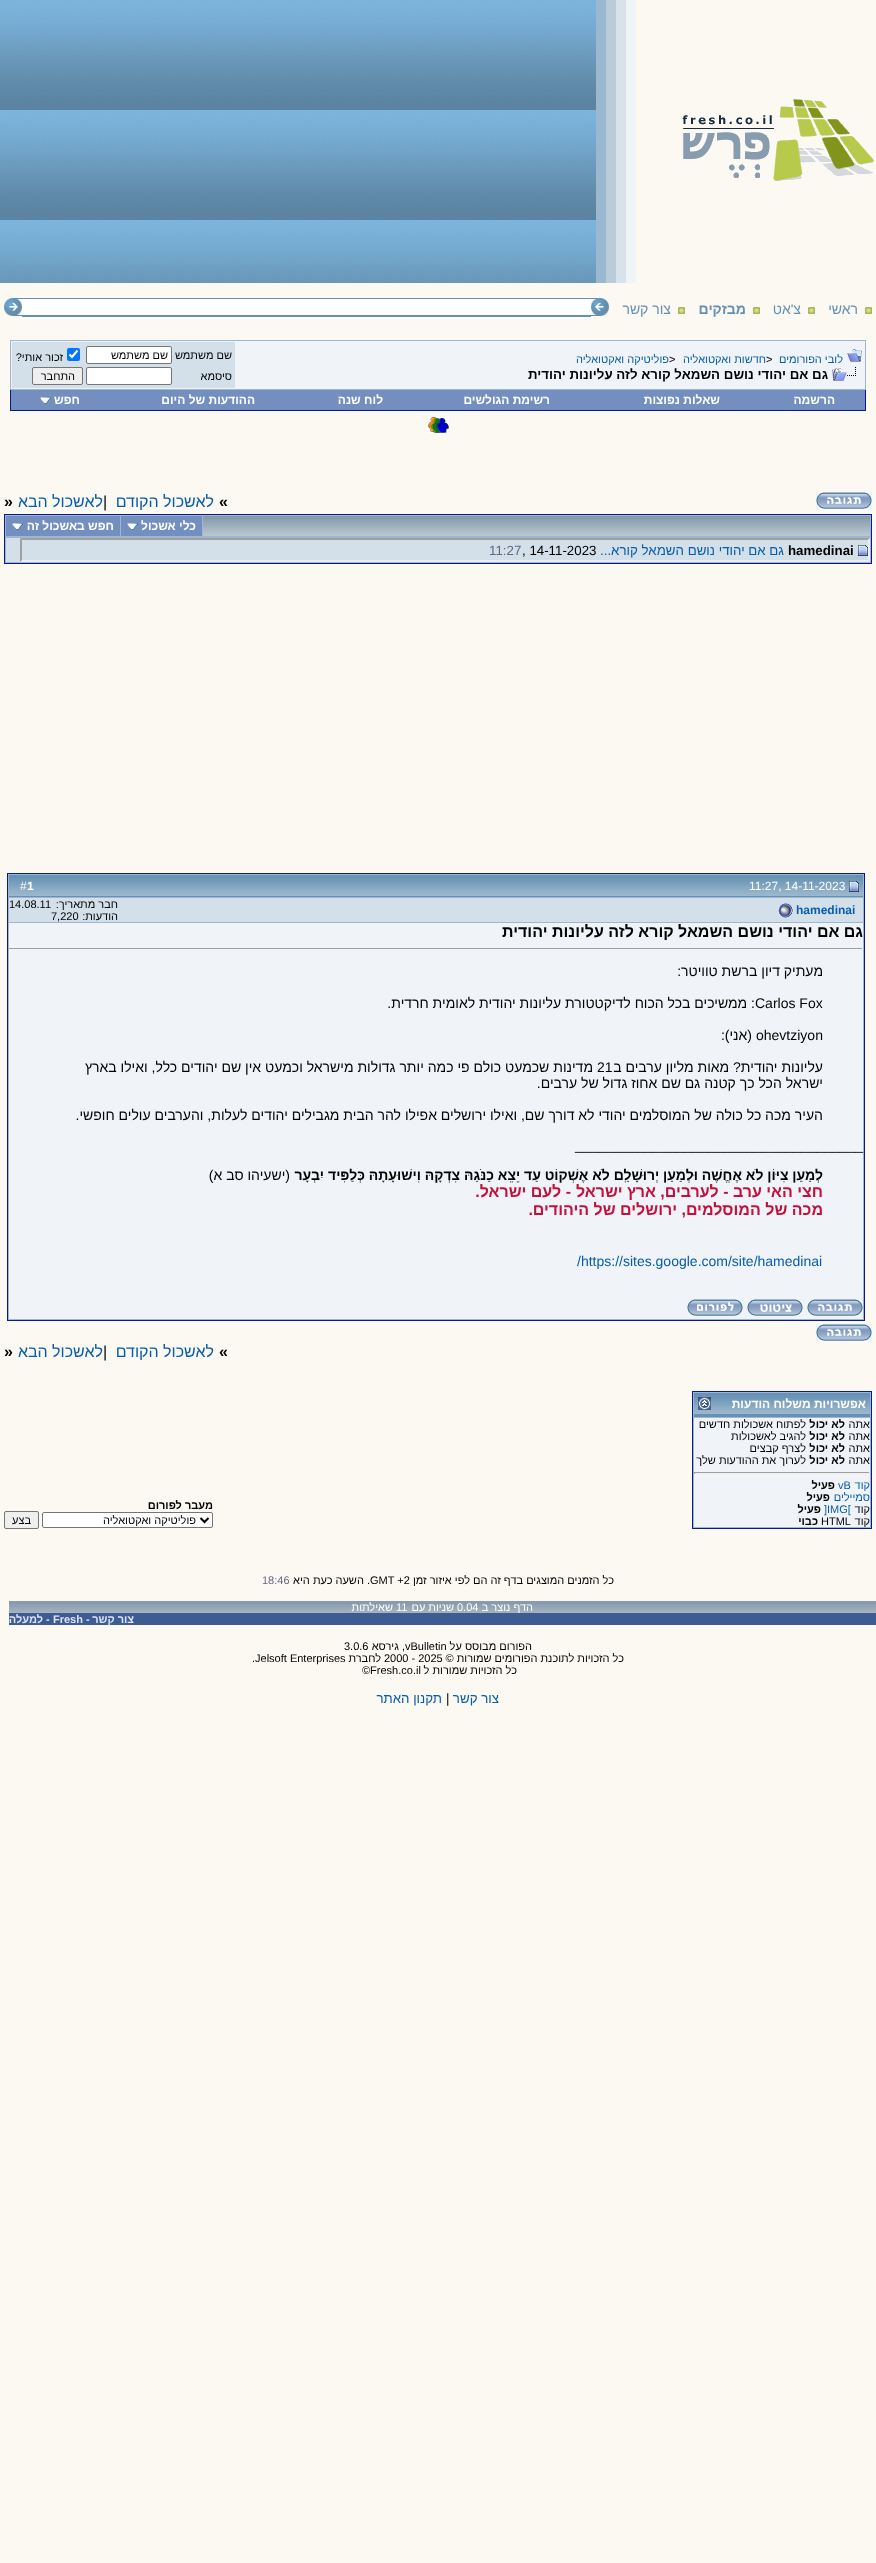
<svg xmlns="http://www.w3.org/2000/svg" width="876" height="2563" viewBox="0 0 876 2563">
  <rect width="100%" height="100%" fill="#fbf9f1"/>
  <image x="682" y="99" width="192" height="82" href="img1.png"/>
  <rect x="626" y="0" width="10" height="283" fill="#eff4f7"/>
  <rect x="616" y="0" width="10" height="283" fill="#d8e2eb"/>
  <rect x="606" y="0" width="10" height="283" fill="#baccda"/>
  <rect x="596" y="0" width="10" height="283" fill="#9ab8d0"/>
  <image x="589" y="0" width="7" height="283" href="img2.png"/>
  <image x="7" y="0" width="582" height="283" href="img3.png"/>
  <image x="0" y="0" width="7" height="283" href="img2.png"/>
  <image x="865" y="307" width="7" height="7" href="img4.png"/>
  <text x="858" y="314" font-family="Liberation Sans" font-size="14" direction="rtl" fill="#6490b3">ראשי</text>
  <image x="808" y="307" width="7" height="7" href="img4.png"/>
  <text x="801" y="314" font-family="Liberation Sans" font-size="14" direction="rtl" fill="#6490b3">צ'אט</text>
  <image x="753" y="307" width="7" height="7" href="img4.png"/>
  <text x="746" y="314" font-family="Liberation Sans" font-size="14" font-weight="bold" direction="rtl" fill="#6490b3">מבזקים</text>
  <image x="678" y="307" width="7" height="7" href="img4.png"/>
  <text x="671" y="314" font-family="Liberation Sans" font-size="14" direction="rtl" fill="#6490b3">צור קשר</text>
  <image x="591" y="298" width="18" height="18" href="img5.png"/>
  <image x="22" y="298" width="569" height="21" href="img6.png"/>
  <image x="4" y="298" width="18" height="18" href="img7.png"/>
  <rect x="10.5" y="340.5" width="855" height="49" fill="#f0f4f8" stroke="#9cb8d0"/>
  <image x="847" y="349" width="15" height="13" href="img8.png"/>
  <text x="843" y="363" font-family="Liberation Sans" font-size="11" direction="rtl" fill="#075cab">לובי הפורומים</text>
  <text x="766" y="363" font-family="Liberation Sans" font-size="11" fill="#000000">&gt;</text>
  <text x="766" y="363" font-family="Liberation Sans" font-size="11" direction="rtl" fill="#075cab">חדשות ואקטואליה</text>
  <text x="669" y="363" font-family="Liberation Sans" font-size="11" fill="#000000">&gt;</text>
  <text x="669" y="363" font-family="Liberation Sans" font-size="11" direction="rtl" fill="#075cab">פוליטיקה ואקטואליה</text>
  <image x="832" y="367" width="24" height="14" href="img9.png"/>
  <text x="828" y="379" font-family="Liberation Sans" font-size="13.3" font-weight="bold" direction="rtl" fill="#000000">גם אם יהודי נושם השמאל קורא לזה עליונות יהודית</text>
  <rect x="12" y="342" width="223" height="46" fill="#d3e0e9"/>
  <text x="232" y="359" font-family="Liberation Sans" font-size="11" direction="rtl" fill="#000000">שם משתמש</text>
  <rect x="86.5" y="346.5" width="85" height="17" rx="1.5" fill="#ffffff" stroke="#767676"/>
  <text x="168" y="359" font-family="Liberation Sans" font-size="11" direction="rtl" fill="#000000">שם משתמש</text>
  <rect x="67" y="348" width="13" height="13" rx="2" fill="#0075ff"/>
  <path d="M69.5 354.5L72 357L77.5 350.5" fill="none" stroke="#ffffff" stroke-width="2.1"/>
  <text x="63" y="361" font-family="Liberation Sans" font-size="11" direction="rtl" fill="#000000">זכור אותי?</text>
  <text x="232" y="380" font-family="Liberation Sans" font-size="11" direction="rtl" fill="#000000">סיסמא</text>
  <rect x="86.5" y="367.5" width="85" height="17" rx="1.5" fill="#ffffff" stroke="#767676"/>
  <rect x="32.5" y="367.5" width="50" height="17" rx="1.5" fill="#efefef" stroke="#767676"/>
  <text x="75" y="380" font-family="Liberation Sans" font-size="11" direction="rtl" fill="#000000">התחבר</text>
  <rect x="865" y="390" width="1" height="21" fill="#0b198c"/>
  <rect x="10" y="410" width="856" height="1" fill="#0b198c"/>
  <rect x="10" y="390" width="1" height="21" fill="#0b198c"/>
  <rect x="11" y="390" width="854" height="20" fill="#738fbf"/>
  <text x="835" y="404" font-family="Liberation Sans" font-size="12" font-weight="bold" direction="rtl" fill="#ffffff">הרשמה</text>
  <text x="720" y="404" font-family="Liberation Sans" font-size="12" font-weight="bold" direction="rtl" fill="#ffffff">שאלות נפוצות</text>
  <text x="550" y="404" font-family="Liberation Sans" font-size="12" font-weight="bold" direction="rtl" fill="#ffffff">רשימת הגולשים</text>
  <text x="383" y="404" font-family="Liberation Sans" font-size="12" font-weight="bold" direction="rtl" fill="#ffffff">לוח שנה</text>
  <text x="255" y="404" font-family="Liberation Sans" font-size="12" font-weight="bold" direction="rtl" fill="#ffffff">ההודעות של היום</text>
  <text x="80" y="404" font-family="Liberation Sans" font-size="12" font-weight="bold" direction="rtl" fill="#ffffff">חפש</text>
  <image x="40" y="397" width="11" height="7" href="img10.png"/>
  <image x="428" y="417" width="21" height="16" href="img11.png"/>
  <image x="816" y="492" width="56" height="17" href="img12.png"/>
  <text x="219" y="507" font-family="Liberation Sans" font-size="16" font-weight="bold" fill="#000000">«</text>
  <text x="214" y="507" font-family="Liberation Sans" font-size="16" direction="rtl" fill="#075cab">לאשכול הקודם</text>
  <text x="103" y="507" font-family="Liberation Sans" font-size="16" fill="#000000">|</text>
  <text x="103" y="507" font-family="Liberation Sans" font-size="16" direction="rtl" fill="#075cab">לאשכול הבא</text>
  <text x="4" y="507" font-family="Liberation Sans" font-size="16" font-weight="bold" fill="#000000">»</text>
  <rect x="5" y="515" width="866" height="48" fill="#9cb8d0"/>
  <rect x="4" y="514" width="868" height="1" fill="#0b198c"/>
  <rect x="871" y="514" width="1" height="50" fill="#0b198c"/>
  <rect x="4" y="514" width="1" height="23" fill="#0b198c"/>
  <rect x="203" y="516" width="667" height="3" fill="#889bac"/>
  <image x="203" y="519" width="667" height="17" href="img13.png"/>
  <rect x="121" y="516" width="81" height="20" fill="#738fbf"/>
  <text x="196" y="530" font-family="Liberation Sans" font-size="12" font-weight="bold" direction="rtl" fill="#ffffff">כלי אשכול</text>
  <image x="127" y="523" width="11" height="7" href="img10.png"/>
  <rect x="6" y="516" width="114" height="20" fill="#738fbf"/>
  <text x="114" y="530" font-family="Liberation Sans" font-size="12" font-weight="bold" direction="rtl" fill="#ffffff">חפש באשכול זה</text>
  <image x="12" y="523" width="11" height="7" href="img10.png"/>
  <rect x="4" y="563" width="868" height="1" fill="#0b198c"/>
  <rect x="4" y="537" width="1" height="27" fill="#0b198c"/>
  <rect x="6" y="538" width="864" height="24" fill="#d3e0e9"/>
  <path d="M20 538H870L868 540H22Z" fill="#9f9f9f"/>
  <path d="M870 538V562L868 560V540Z" fill="#eeeeee"/>
  <path d="M870 562H20L22 560H868Z" fill="#eeeeee"/>
  <path d="M20 562V538L22 540V560Z" fill="#9f9f9f"/>
  <image x="858" y="545" width="10" height="11" href="img14.png"/>
  <text x="788" y="555" font-family="Liberation Sans" font-size="13.3" font-weight="bold" fill="#000000">hamedinai</text>
  <text x="784" y="555" font-family="Liberation Sans" font-size="13.3" direction="rtl" fill="#075cab">גם אם יהודי נושם השמאל קורא...</text>
  <text x="522" y="555" font-family="Liberation Sans" font-size="13.3" fill="#000000">, 14-11-2023</text>
  <text x="489" y="555" font-family="Liberation Sans" font-size="13.3" fill="#666686">11:27</text>
  <rect x="7.5" y="873.5" width="857" height="447" fill="#9cb8d0" stroke="#0b198c"/>
  <rect x="9" y="875" width="854" height="22" fill="#6691b4"/>
  <image x="9" y="877" width="854" height="19" href="img15.png"/>
  <image x="849" y="881" width="10" height="11" href="img16.png"/>
  <text x="749" y="890" font-family="Liberation Sans" font-size="12" fill="#ffffff">11:27, 14-11-2023</text>
  <text x="27" y="890" font-family="Liberation Sans" font-size="12" font-weight="bold" fill="#ffffff">1</text>
  <text x="20" y="890" font-family="Liberation Sans" font-size="12" fill="#ffffff">#</text>
  <rect x="9" y="898" width="854" height="24" fill="#d3e0e9"/>
  <text x="796" y="914" font-family="Liberation Sans" font-size="12" font-weight="bold" fill="#075cab">hamedinai</text>
  <image x="778" y="903" width="15" height="15" href="img17.png"/>
  <text x="118" y="908" font-family="Liberation Sans" font-size="11" direction="rtl" fill="#000000">חבר מתאריך:</text>
  <text x="9" y="908" font-family="Liberation Sans" font-size="11" fill="#000000">14.08.11</text>
  <text x="118" y="920" font-family="Liberation Sans" font-size="11" direction="rtl" fill="#000000">הודעות:</text>
  <text x="51" y="920" font-family="Liberation Sans" font-size="11" fill="#000000">7,220</text>
  <rect x="9" y="923" width="854" height="396" fill="#f0f4f8"/>
  <text x="863" y="937" font-family="Liberation Sans" font-size="16" font-weight="bold" direction="rtl" fill="#000000">גם אם יהודי נושם השמאל קורא לזה עליונות יהודית</text>
  <rect x="9" y="948" width="854" height="1" fill="#9f9f9f"/>
  <rect x="862" y="948" width="1" height="1" fill="#eeeeee"/>
  <text x="823" y="976" font-family="Liberation Sans" font-size="14" direction="rtl" fill="#000000">מעתיק דיון ברשת טוויטר:</text>
  <text x="755" y="1008" font-family="Liberation Sans" font-size="14" fill="#000000">Carlos Fox</text>
  <text x="755" y="1008" font-family="Liberation Sans" font-size="14" direction="rtl" fill="#000000">: ממשיכים בכל הכוח לדיקטטורת עליונות יהודית לאומית חרדית.</text>
  <text x="756" y="1040" font-family="Liberation Sans" font-size="14" fill="#000000">ohevtziyon</text>
  <text x="752" y="1040" font-family="Liberation Sans" font-size="14" direction="rtl" fill="#000000">(אני):</text>
  <text x="823" y="1072" font-family="Liberation Sans" font-size="14" direction="rtl" fill="#000000">עליונות יהודית? מאות מליון ערבים ב</text>
  <text x="597" y="1072" font-family="Liberation Sans" font-size="14" fill="#000000">21</text>
  <text x="593" y="1072" font-family="Liberation Sans" font-size="14" direction="rtl" fill="#000000">מדינות שכמעט כולם פי כמה יותר גדולות מישראל וכמעט אין שם יהודים כלל, ואילו בארץ</text>
  <text x="823" y="1088" font-family="Liberation Sans" font-size="14" direction="rtl" fill="#000000">ישראל הכל כך קטנה גם שם אחוז גדול של ערבים.</text>
  <text x="823" y="1120" font-family="Liberation Sans" font-size="14" direction="rtl" fill="#000000">העיר מכה כל כולה של המוסלמים יהודי לא דורך שם, ואילו ירושלים אפילו להר הבית מגבילים יהודים לעלות, והערבים עולים חופשי.</text>
  <text x="575" y="1150" font-family="Liberation Sans" font-size="14" fill="#000000">_____________________________________</text>
  <text x="823" y="1180" font-family="Liberation Sans" font-size="14" font-weight="bold" direction="rtl" fill="#000000">לְמַעַן צִיּוֹן לֹא אֶחֱשֶׁה וּלְמַעַן יְרוּשָׁלִַם לֹא אֶשְׁקוֹט עַד יֵצֵא כַנֹּגַהּ צִדְקָהּ וִישׁוּעָתָהּ כְּלַפִּיד יִבְעָר</text>
  <text x="290" y="1180" font-family="Liberation Sans" font-size="14" direction="rtl" fill="#000000">(ישעיהו סב א)</text>
  <text x="823" y="1197" font-family="Liberation Sans" font-size="16" font-weight="bold" direction="rtl" fill="#c3113b">חצי האי ערב - לערבים,</text>
  <text x="656" y="1197" font-family="Liberation Sans" font-size="16" font-weight="bold" direction="rtl" fill="#c3113b">ארץ ישראל</text>
  <text x="571" y="1197" font-family="Liberation Sans" font-size="16" font-weight="bold" direction="rtl" fill="#c3113b">- לעם ישראל.</text>
  <text x="823" y="1215" font-family="Liberation Sans" font-size="16" font-weight="bold" direction="rtl" fill="#c3113b">מכה של המוסלמים, ירושלים של היהודים.</text>
  <text x="577" y="1266" font-family="Liberation Sans" font-size="14" fill="#075cab">/https://sites.google.com/site/hamedinai</text>
  <image x="807" y="1299" width="56" height="17" href="img12.png"/>
  <image x="747" y="1299" width="56" height="17" href="img18.png"/>
  <image x="687" y="1299" width="56" height="17" href="img19.png"/>
  <image x="816" y="1324" width="56" height="17" href="img12.png"/>
  <text x="219" y="1357" font-family="Liberation Sans" font-size="16" font-weight="bold" fill="#000000">«</text>
  <text x="214" y="1357" font-family="Liberation Sans" font-size="16" direction="rtl" fill="#075cab">לאשכול הקודם</text>
  <text x="103" y="1357" font-family="Liberation Sans" font-size="16" fill="#000000">|</text>
  <text x="103" y="1357" font-family="Liberation Sans" font-size="16" direction="rtl" fill="#075cab">לאשכול הבא</text>
  <text x="4" y="1357" font-family="Liberation Sans" font-size="16" font-weight="bold" fill="#000000">»</text>
  <rect x="692.5" y="1391.5" width="179" height="137" fill="#9cb8d0" stroke="#0b198c"/>
  <rect x="694" y="1393" width="176" height="24" fill="#6691b4"/>
  <image x="694" y="1395" width="176" height="19" href="img20.png"/>
  <text x="866" y="1408" font-family="Liberation Sans" font-size="12" font-weight="bold" direction="rtl" fill="#ffffff">אפשרויות משלוח הודעות</text>
  <image x="698" y="1397" width="13" height="13" href="img21.png"/>
  <rect x="694" y="1418" width="176" height="109" fill="#f0f4f8"/>
  <text x="870" y="1428" font-family="Liberation Sans" font-size="11" direction="rtl" fill="#000000">אתה</text>
  <text x="845" y="1428" font-family="Liberation Sans" font-size="11" font-weight="bold" direction="rtl" fill="#000000">לא יכול</text>
  <text x="806" y="1428" font-family="Liberation Sans" font-size="11" direction="rtl" fill="#000000">לפתוח אשכולות חדשים</text>
  <text x="870" y="1440" font-family="Liberation Sans" font-size="11" direction="rtl" fill="#000000">אתה</text>
  <text x="845" y="1440" font-family="Liberation Sans" font-size="11" font-weight="bold" direction="rtl" fill="#000000">לא יכול</text>
  <text x="806" y="1440" font-family="Liberation Sans" font-size="11" direction="rtl" fill="#000000">להגיב לאשכולות</text>
  <text x="870" y="1452" font-family="Liberation Sans" font-size="11" direction="rtl" fill="#000000">אתה</text>
  <text x="845" y="1452" font-family="Liberation Sans" font-size="11" font-weight="bold" direction="rtl" fill="#000000">לא יכול</text>
  <text x="806" y="1452" font-family="Liberation Sans" font-size="11" direction="rtl" fill="#000000">לצרף קבצים</text>
  <text x="870" y="1464" font-family="Liberation Sans" font-size="11" direction="rtl" fill="#000000">אתה</text>
  <text x="845" y="1464" font-family="Liberation Sans" font-size="11" font-weight="bold" direction="rtl" fill="#000000">לא יכול</text>
  <text x="806" y="1464" font-family="Liberation Sans" font-size="11" direction="rtl" fill="#000000">לערוך את ההודעות שלך</text>
  <rect x="694" y="1472" width="176" height="1" fill="#9f9f9f"/>
  <rect x="869" y="1472" width="1" height="2" fill="#eeeeee"/>
  <rect x="694" y="1473" width="176" height="1" fill="#eeeeee"/>
  <rect x="694" y="1472" width="1" height="2" fill="#9f9f9f"/>
  <text x="870" y="1489" font-family="Liberation Sans" font-size="11" direction="rtl" fill="#075cab">קוד</text>
  <text x="838" y="1489" font-family="Liberation Sans" font-size="11" fill="#075cab">vB</text>
  <text x="835" y="1489" font-family="Liberation Sans" font-size="11" font-weight="bold" direction="rtl" fill="#000000">פעיל</text>
  <text x="870" y="1501" font-family="Liberation Sans" font-size="11" direction="rtl" fill="#075cab">סמיילים</text>
  <text x="830" y="1501" font-family="Liberation Sans" font-size="11" font-weight="bold" direction="rtl" fill="#000000">פעיל</text>
  <text x="870" y="1513" font-family="Liberation Sans" font-size="11" direction="rtl" fill="#000000">קוד</text>
  <text x="824" y="1513" font-family="Liberation Sans" font-size="11" fill="#075cab">]IMG[</text>
  <text x="821" y="1513" font-family="Liberation Sans" font-size="11" font-weight="bold" direction="rtl" fill="#000000">פעיל</text>
  <text x="870" y="1525" font-family="Liberation Sans" font-size="11" direction="rtl" fill="#000000">קוד</text>
  <text x="821" y="1525" font-family="Liberation Sans" font-size="11" fill="#000000">HTML</text>
  <text x="818" y="1525" font-family="Liberation Sans" font-size="11" font-weight="bold" direction="rtl" fill="#000000">כבוי</text>
  <text x="213" y="1509" font-family="Liberation Sans" font-size="11" font-weight="bold" direction="rtl" fill="#000000">מעבר לפורום</text>
  <rect x="42.5" y="1512.5" width="170" height="15" rx="1.5" fill="#ffffff" stroke="#767676"/>
  <path d="M200.5 1518L204.5 1522L208.5 1518" fill="none" stroke="#000000" stroke-width="2"/>
  <text x="196" y="1524" font-family="Liberation Sans" font-size="11" direction="rtl" fill="#000000">פוליטיקה ואקטואליה</text>
  <rect x="4.5" y="1511.5" width="34" height="17" rx="1.5" fill="#efefef" stroke="#767676"/>
  <text x="31" y="1524" font-family="Liberation Sans" font-size="11" direction="rtl" fill="#000000">בצע</text>
  <text x="614" y="1584" font-family="Liberation Sans" font-size="11" direction="rtl" fill="#000000">כל הזמנים המוצגים בדף זה הם לפי איזור זמן</text>
  <text x="370" y="1584" font-family="Liberation Sans" font-size="11" fill="#000000">GMT +2</text>
  <text x="370" y="1584" font-family="Liberation Sans" font-size="11" direction="rtl" fill="#000000">. השעה כעת היא</text>
  <text x="262" y="1584" font-family="Liberation Sans" font-size="11" fill="#666686">18:46</text>
  <rect x="9" y="1601" width="867" height="3" fill="#889bac"/>
  <image x="9" y="1604" width="867" height="9" href="img22.png"/>
  <rect x="9" y="1613" width="867" height="12" fill="#3e5c92"/>
  <text x="533" y="1611" font-family="Liberation Sans" font-size="11" direction="rtl" fill="#ffffff">הדף נוצר ב</text>
  <text x="457" y="1611" font-family="Liberation Sans" font-size="11" fill="#ffffff">0.04</text>
  <text x="454" y="1611" font-family="Liberation Sans" font-size="11" direction="rtl" fill="#ffffff">שניות עם</text>
  <text x="396" y="1611" font-family="Liberation Sans" font-size="11" fill="#ffffff">11</text>
  <text x="393" y="1611" font-family="Liberation Sans" font-size="11" direction="rtl" fill="#ffffff">שאילתות</text>
  <text x="134" y="1623" font-family="Liberation Sans" font-size="11" font-weight="bold" direction="rtl" fill="#e0e0f6">צור קשר</text>
  <text x="86" y="1623" font-family="Liberation Sans" font-size="11" font-weight="bold" fill="#e0e0f6">-</text>
  <text x="53" y="1623" font-family="Liberation Sans" font-size="11" font-weight="bold" fill="#e0e0f6">Fresh</text>
  <text x="46" y="1623" font-family="Liberation Sans" font-size="11" font-weight="bold" fill="#e0e0f6">-</text>
  <text x="43" y="1623" font-family="Liberation Sans" font-size="11" font-weight="bold" direction="rtl" fill="#e0e0f6">למעלה</text>
  <text x="532" y="1650" font-family="Liberation Sans" font-size="11" direction="rtl" fill="#000000">הפורום מבוסס על</text>
  <text x="405" y="1650" font-family="Liberation Sans" font-size="11" fill="#000000">vBulletin</text>
  <text x="405" y="1650" font-family="Liberation Sans" font-size="11" direction="rtl" fill="#000000">, גירסא</text>
  <text x="344" y="1650" font-family="Liberation Sans" font-size="11" fill="#000000">3.0.6</text>
  <text x="624" y="1662" font-family="Liberation Sans" font-size="11" direction="rtl" fill="#000000">כל הזכויות לתוכנת הפורומים שמורות ©</text>
  <text x="384" y="1662" font-family="Liberation Sans" font-size="11" fill="#000000">2000 - 2025</text>
  <text x="381" y="1662" font-family="Liberation Sans" font-size="11" direction="rtl" fill="#000000">לחברת</text>
  <text x="252" y="1662" font-family="Liberation Sans" font-size="11" fill="#000000">.Jelsoft Enterprises</text>
  <text x="517" y="1674" font-family="Liberation Sans" font-size="11" direction="rtl" fill="#000000">כל הזכויות שמורות ל</text>
  <text x="362" y="1674" font-family="Liberation Sans" font-size="11" fill="#000000">©Fresh.co.il</text>
  <text x="499" y="1703" font-family="Liberation Sans" font-size="13.3" direction="rtl" fill="#075cab">צור קשר</text>
  <text x="446" y="1703" font-family="Liberation Sans" font-size="13.3" fill="#000000">|</text>
  <text x="442" y="1703" font-family="Liberation Sans" font-size="13.3" direction="rtl" fill="#075cab">תקנון האתר</text>
</svg>
